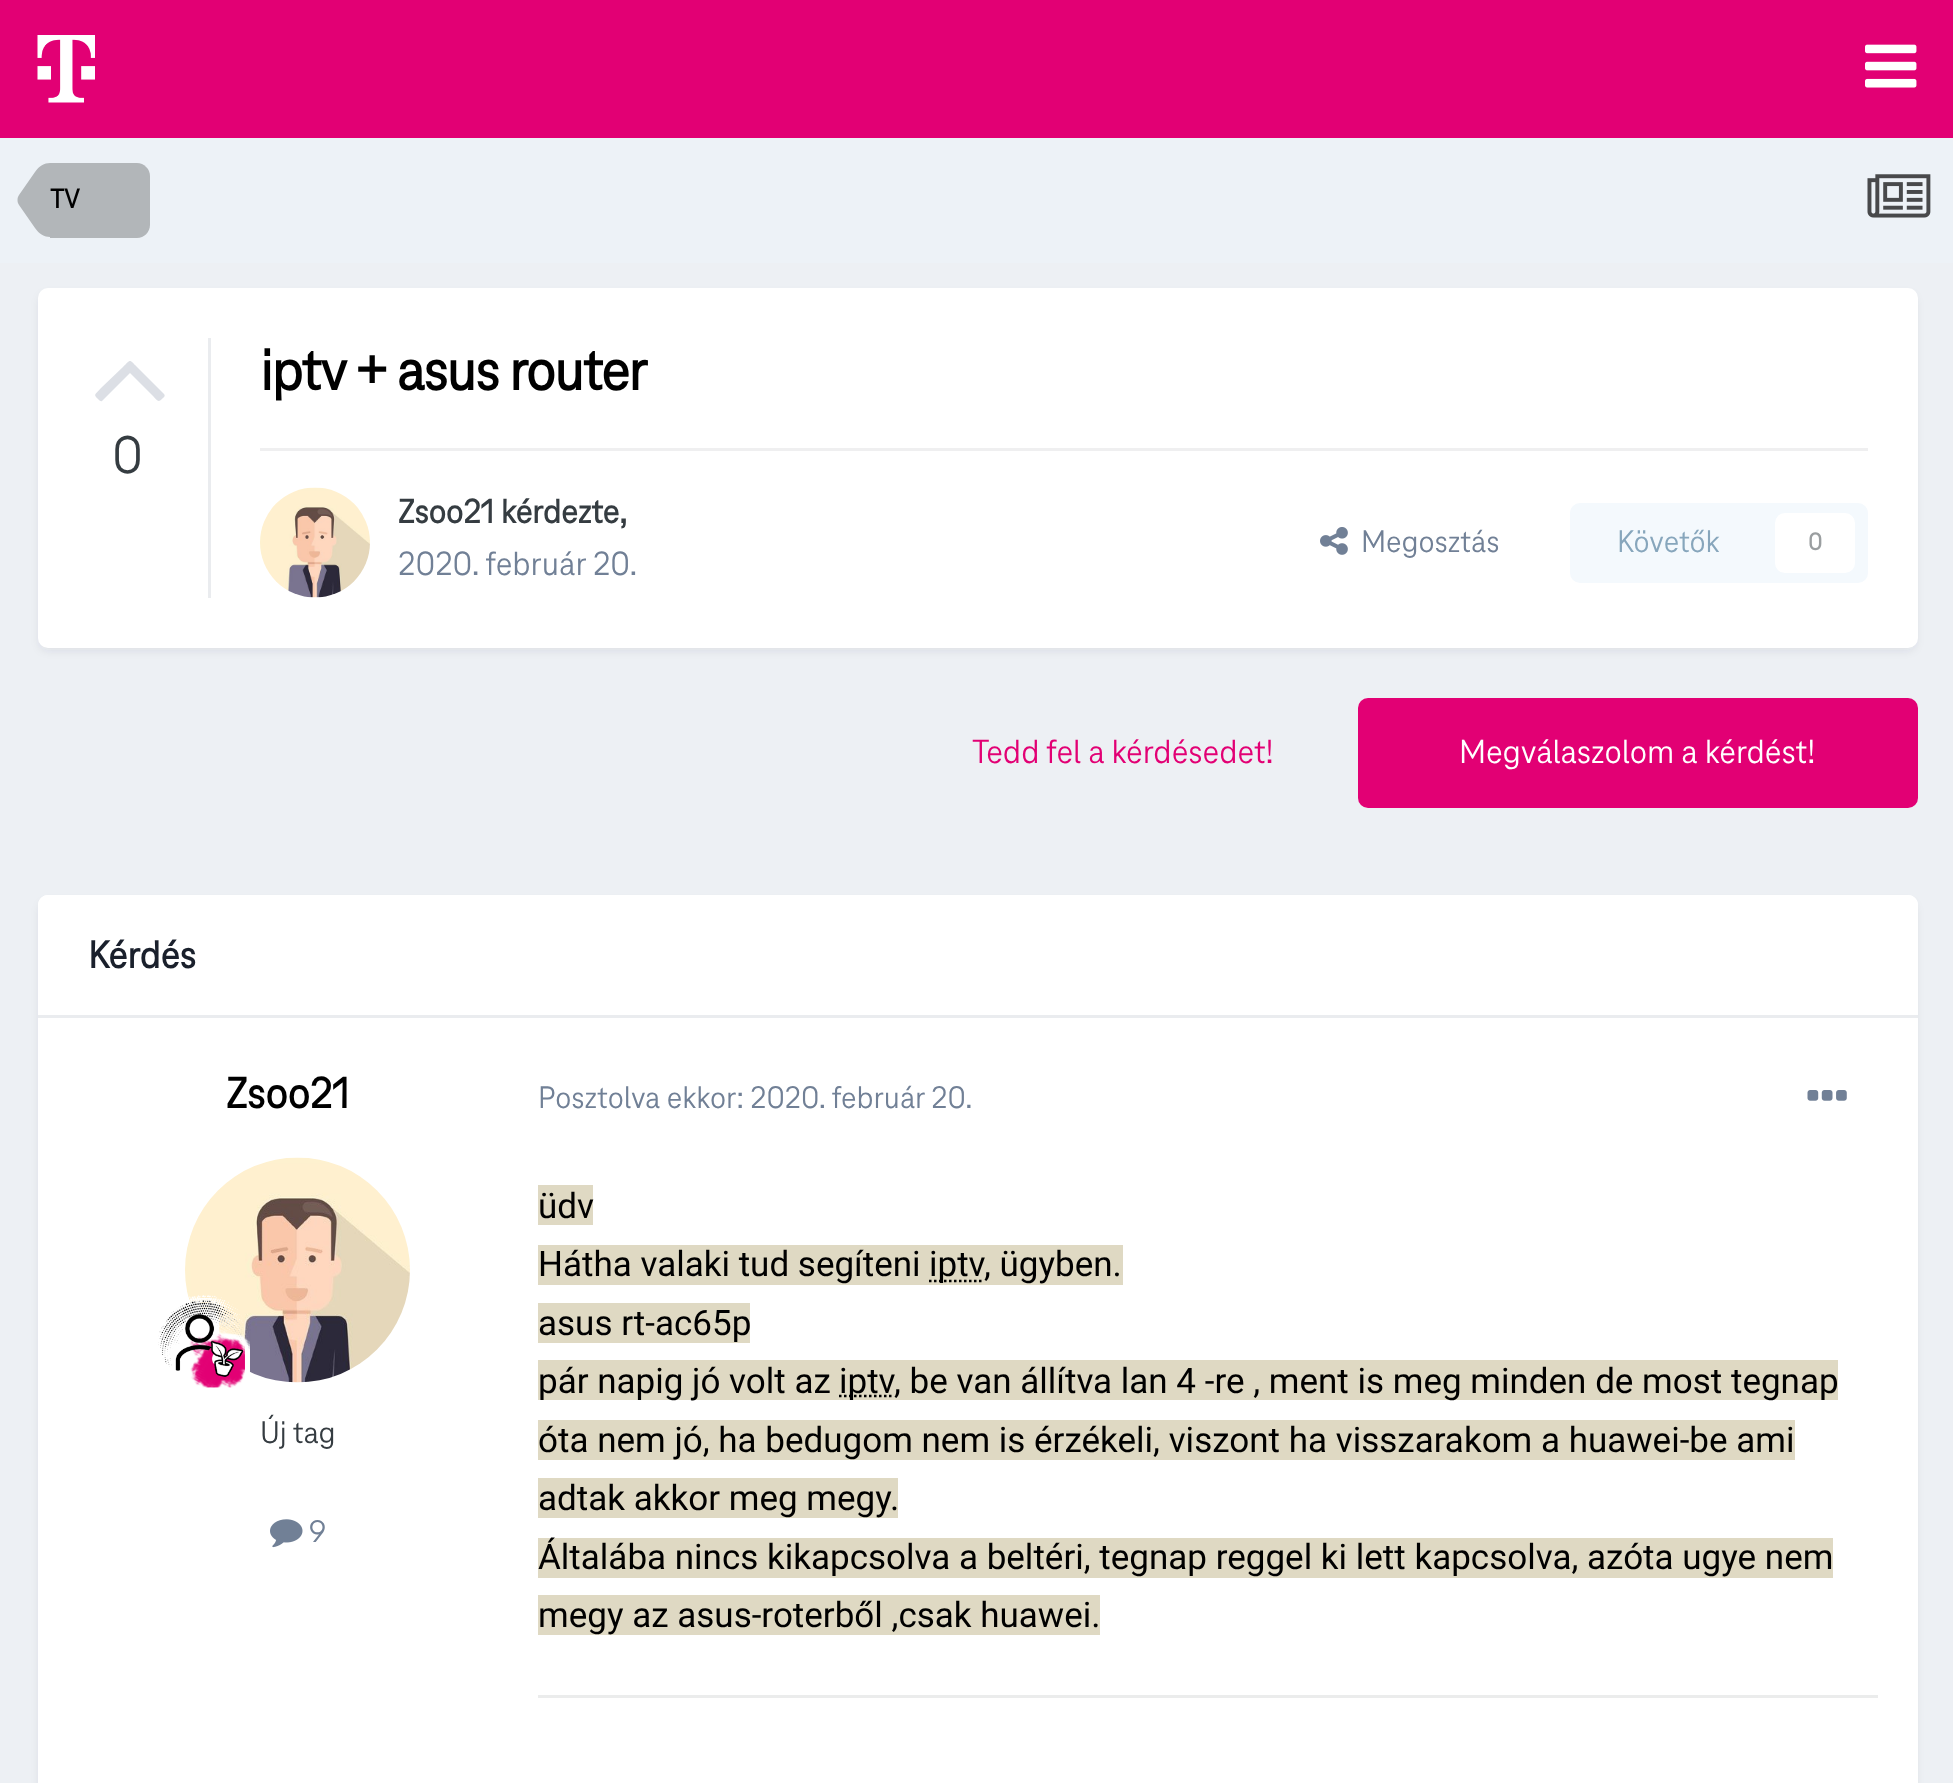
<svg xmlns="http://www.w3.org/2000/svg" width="1953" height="1783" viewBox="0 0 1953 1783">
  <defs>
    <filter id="blur1" x="-50%" y="-200%" width="200%" height="500%"><feGaussianBlur stdDeviation="5"/></filter>
  </defs>
  <rect width="100%" height="100%" fill="#edf0f4"/>
  <rect x="0" y="0" width="1953" height="138" fill="#e20074"/>
  <image x="37" y="35" width="58" height="68" href="img1.png"/>
  <image x="1865" y="44" width="52" height="44" href="img2.png"/>
  <rect x="0" y="138" width="1953" height="125" fill="#edf2f7"/>
  <path d="M50 163H137C144 163 150 169 150 176V225C150 232 144 238 137 238H50Z" fill="#b2b6b9"/>
  <path d="M50 200V237C44.5 237 39 234 35 228L19 205C18 203.5 17.5 202 17.5 200Z" fill="#b2b6b9"/>
  <path d="M50 200H17.5C17.5 198 18 196.5 19 195L35 172C39 166 44.5 163 50 163Z" fill="#b2b6b9"/>
  <text x="50" y="208" font-family="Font" font-size="28" font-weight="bold" fill="#000000">TV</text>
  <image x="1867" y="174" width="64" height="44" href="img3.png"/>
  <rect x="40" y="295" width="1875" height="355" rx="8" fill="#2d3748" fill-opacity="0.1" filter="url(#blur1)"/>
  <rect x="38" y="288" width="1880" height="360" rx="10" fill="#ffffff"/>
  <rect x="208" y="338" width="3" height="260" fill="#eaecef"/>
  <path d="M164 394C166 396 163 398 162 399C158 403 157 400 153 396L130 373L102 401C101 402 99 400 98 399C93 394 95 395 101 388L123 367C131 359 129 359 137 367Z" fill="#dcdfe5"/>
  <text x="112" y="473" font-family="Font" font-size="55" fill="#353c41">0</text>
  <text x="260" y="390" font-family="Font" font-size="60" font-weight="bold" letter-spacing="-1.25" fill="#000000">iptv + asus router</text>
  <rect x="260" y="448" width="1608" height="3" fill="#efeff0"/>
  <image x="260" y="487" width="110" height="111" href="img4.png"/>
  <text x="398" y="523" font-family="Font" font-size="35" font-weight="bold" fill="#353c41">Zsoo21 kérdezte,</text>
  <text x="398" y="575" font-family="Font" font-size="35" fill="#718096">2020. február 20.</text>
  <image x="1320" y="527" width="28" height="28" href="img5.png"/>
  <text x="1361" y="552" font-family="Font" font-size="32.5" fill="#718096">Megosztás</text>
  <rect x="1570" y="503" width="298" height="80" rx="10" fill="#f4f9fd"/>
  <text x="1617" y="552" font-family="Font" font-size="32.5" fill="#87a6bc">Követők</text>
  <rect x="1775" y="513" width="80" height="60" rx="10" fill="#ffffff"/>
  <text x="1808" y="550" font-family="Font" font-size="25" font-weight="bold" fill="#9a9ea0">0</text>
  <text x="972" y="763" font-family="Font" font-size="35" fill="#e20074">Tedd fel a kérdésedet!</text>
  <rect x="1358" y="698" width="560" height="110" rx="10" fill="#e20074"/>
  <text x="1459" y="763" font-family="Font" font-size="35" fill="#ffffff">Megválaszolom a kérdést!</text>
  <rect x="40" y="903" width="1875" height="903" rx="8" fill="#2d3748" fill-opacity="0.1" filter="url(#blur1)"/>
  <rect x="38" y="895" width="1880" height="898" rx="10" fill="#ffffff"/>
  <path d="M48 895H1908C1913.5 895 1918 899.5 1918 905V1018H38V905C38 899.5 42.5 895 48 895Z" fill="#ffffff"/>
  <rect x="38" y="1015" width="1880" height="3" fill="#eaecef"/>
  <text x="88" y="968" font-family="Font" font-size="40" font-weight="bold" fill="#1a202c">Kérdés</text>
  <text x="226" y="1108" font-family="Font" font-size="45" font-weight="bold" fill="#000000">Zsoo21</text>
  <image x="185" y="1157" width="225" height="226" href="img6.png"/>
  <image x="158" y="1295" width="92" height="93" href="img7.png"/>
  <text x="260" y="1443" font-family="Font" font-size="32.5" fill="#353c41">Új tag</text>
  <image x="270" y="1519" width="33" height="29" href="img8.png"/>
  <text x="309" y="1542" font-family="Font" font-size="32.5" fill="#718096">9</text>
  <text x="538" y="1108" font-family="Font" font-size="32.5" fill="#718096">Posztolva ekkor: 2020. február 20.</text>
  <image x="1807" y="1090" width="40" height="11" href="img9.png"/>
  <rect x="538" y="1185" width="55" height="40" fill="#dfd9c3"/>
  <text x="538" y="1218" font-family="Roboto" font-size="35" fill="#000000">üdv</text>
  <rect x="538" y="1245" width="585" height="40" fill="#dfd9c3"/>
  <text x="538" y="1276" font-family="Roboto" font-size="35" fill="#000000">Hátha valaki tud segíteni</text>
  <path d="M929 1281H983.5" fill="none" stroke="#000000" stroke-width="2.5" stroke-dasharray="2.5 2.5"/>
  <text x="929" y="1276" font-family="Roboto" font-size="35" fill="#000000">iptv</text>
  <text x="984" y="1276" font-family="Roboto" font-size="35" fill="#000000">, ügyben.</text>
  <rect x="538" y="1303" width="212" height="40" fill="#dfd9c3"/>
  <text x="538" y="1335" font-family="Roboto" font-size="35" fill="#000000">asus rt-ac65p</text>
  <rect x="538" y="1360" width="1300" height="40" fill="#dfd9c3"/>
  <text x="538" y="1393" font-family="Roboto" font-size="35" fill="#000000">pár napig jó volt az</text>
  <path d="M839 1396H894" fill="none" stroke="#000000" stroke-width="2.5" stroke-dasharray="2.5 2.5"/>
  <text x="839" y="1393" font-family="Roboto" font-size="35" fill="#000000">iptv</text>
  <text x="894" y="1393" font-family="Roboto" font-size="35" fill="#000000">, be van állítva lan 4 -re , ment is meg minden de most tegnap</text>
  <rect x="538" y="1420" width="1257" height="40" fill="#dfd9c3"/>
  <text x="538" y="1452" font-family="Roboto" font-size="35" fill="#000000">óta nem jó, ha bedugom nem is érzékeli, viszont ha visszarakom a huawei-be ami</text>
  <rect x="538" y="1478" width="360" height="40" fill="#dfd9c3"/>
  <text x="538" y="1510" font-family="Roboto" font-size="35" fill="#000000">adtak akkor meg megy.</text>
  <rect x="538" y="1538" width="1295" height="40" fill="#dfd9c3"/>
  <text x="538" y="1569" font-family="Roboto" font-size="35" fill="#000000">Általába nincs kikapcsolva a beltéri, tegnap reggel ki lett kapcsolva, azóta ugye nem</text>
  <rect x="538" y="1595" width="562" height="40" fill="#dfd9c3"/>
  <text x="538" y="1627" font-family="Roboto" font-size="35" fill="#000000">megy az asus-roterből ,csak huawei.</text>
  <rect x="538" y="1695" width="1340" height="3" fill="#ebecec"/>
</svg>
